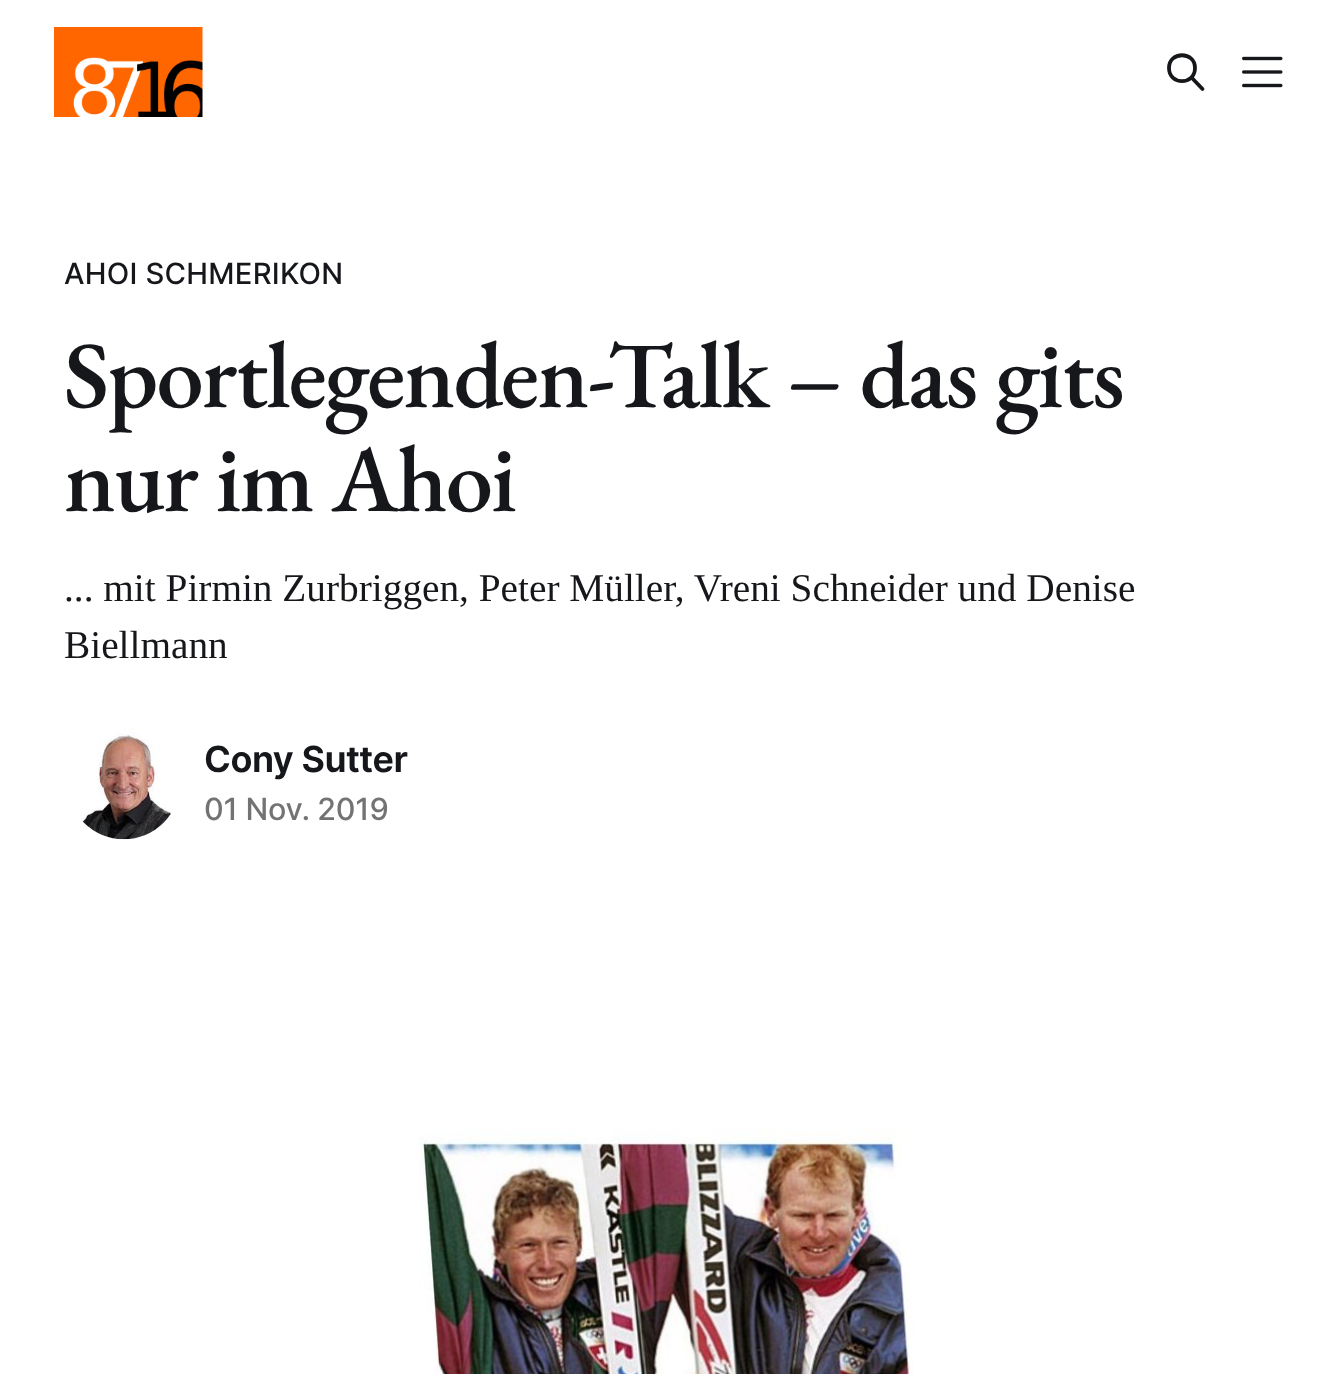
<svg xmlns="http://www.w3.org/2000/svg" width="1336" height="1374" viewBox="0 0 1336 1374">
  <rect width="100%" height="100%" fill="#ffffff"/>
  <image x="54" y="27" width="149" height="90" href="img1.png"/>
  <path d="M1202.5 89L1191.5 77.5M1195 68C1195 85.5 1169 85.5 1169 68C1169 51 1195 51 1195 68Z" fill="none" stroke="#15171a" stroke-width="3.8" stroke-linecap="round" stroke-linejoin="round"/>
  <image x="1242" y="56" width="41" height="32" href="img2.png"/>
  <text x="64" y="284" font-family="Inter" font-size="29.25" font-weight="500" letter-spacing="0.25" fill="#15171a">AHOI SCHMERIKON</text>
  <text x="64" y="407" font-family="EB Garamond" font-size="94.6" font-weight="500" letter-spacing="-1.8" fill="#15171a">Sportlegenden-Talk – das gits</text>
  <text x="64" y="511" font-family="EB Garamond" font-size="94.6" font-weight="500" letter-spacing="-1.8" fill="#15171a">nur im Ahoi</text>
  <text x="64" y="601" font-family="Liberation Serif" font-size="39.3" fill="#15171a">... mit Pirmin Zurbriggen, Peter Müller, Vreni Schneider und Denise</text>
  <text x="64" y="658" font-family="Liberation Serif" font-size="39.3" fill="#15171a">Biellmann</text>
  <image x="68" y="727" width="112" height="113" href="img3.png"/>
  <text x="204" y="772" font-family="Inter" font-size="36" font-weight="600" letter-spacing="-0.5" fill="#15171a">Cony Sutter</text>
  <text x="204" y="820" font-family="Inter" font-size="30.5" font-weight="500" letter-spacing="-0.25" fill="#737373">01 Nov. 2019</text>
  <image x="419" y="1129" width="495" height="245" href="img4.png"/>
</svg>
